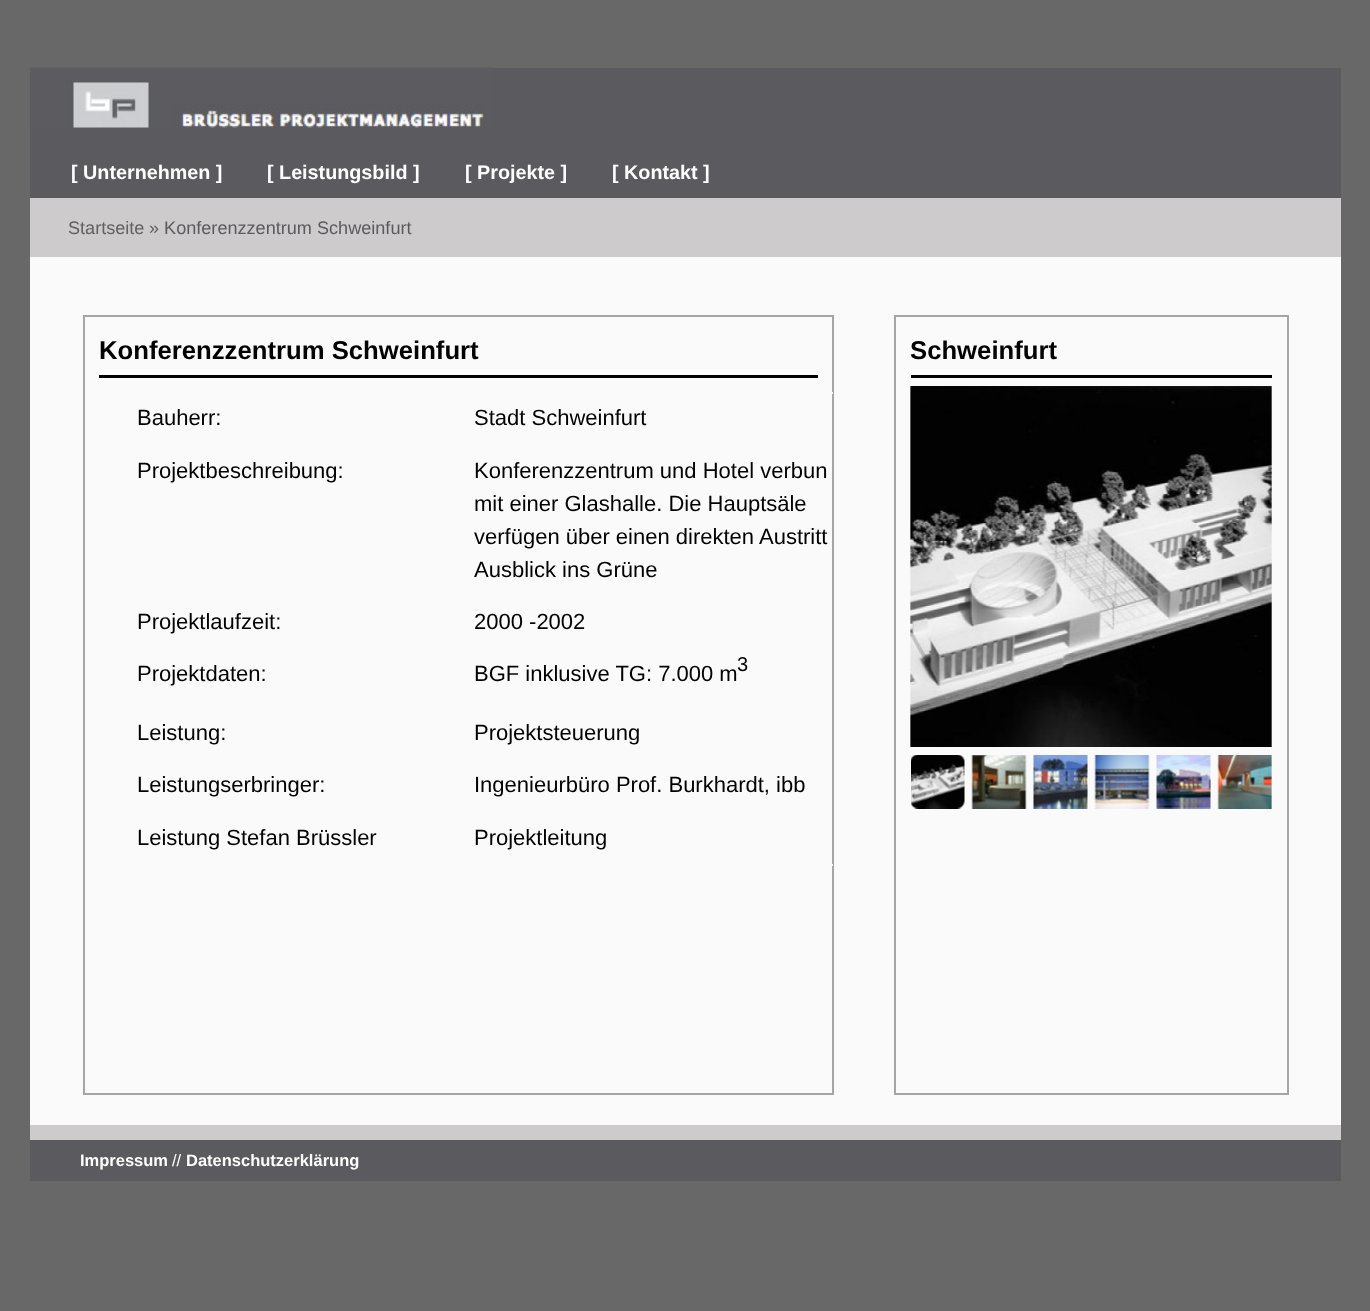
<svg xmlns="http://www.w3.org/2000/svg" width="1370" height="1311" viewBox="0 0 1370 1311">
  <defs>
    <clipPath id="clip1"><rect x="84" y="317" width="749" height="777"/></clipPath>
  </defs>
  <rect width="100%" height="100%" fill="#686868"/>
  <rect x="30" y="198" width="1311" height="942" fill="#cdcbcb"/>
  <rect x="30" y="68" width="1311" height="130" fill="#5b5b5f"/>
  <image x="30" y="67" width="463" height="61" href="img1.png"/>
  <text x="71" y="179" font-family="Liberation Sans" font-size="19.75" font-weight="bold" fill="#ffffff">[ Unternehmen ]</text>
  <text x="267" y="179" font-family="Liberation Sans" font-size="19.75" font-weight="bold" fill="#ffffff">[ Leistungsbild ]</text>
  <text x="465" y="179" font-family="Liberation Sans" font-size="19.75" font-weight="bold" fill="#ffffff">[ Projekte ]</text>
  <text x="612" y="179" font-family="Liberation Sans" font-size="19.75" font-weight="bold" fill="#ffffff">[ Kontakt ]</text>
  <text x="68" y="234" font-family="Liberation Sans" font-size="18.1" fill="#616161">Startseite</text>
  <text x="149" y="234" font-family="Liberation Sans" font-size="18.1" fill="#5b5b5f">» Konferenzzentrum Schweinfurt</text>
  <rect x="30" y="257" width="1311" height="868" fill="#fafafa"/>
  <rect x="84" y="316" width="749" height="778" fill="none" stroke="#a5a5a5" stroke-width="2"/>
  <rect x="99" y="375" width="719" height="3" fill="#000000"/>
  <text x="99" y="359" font-family="Liberation Sans" font-size="25.7" font-weight="bold" fill="#000000">Konferenzzentrum Schweinfurt</text>
  <rect x="895" y="316" width="393" height="778" fill="none" stroke="#a5a5a5" stroke-width="2"/>
  <g clip-path="url(#clip1)">
    <rect x="100" y="393" width="823" height="472" fill="none" stroke="#fafafa" stroke-width="2"/>
  </g>
  <text x="137" y="425" font-family="Liberation Sans" font-size="22" fill="#000000">Bauherr:</text>
  <text x="474" y="425" font-family="Liberation Sans" font-size="22" fill="#000000">Stadt Schweinfurt</text>
  <text x="137" y="478" font-family="Liberation Sans" font-size="22" fill="#000000">Projektbeschreibung:</text>
  <text x="474" y="478" font-family="Liberation Sans" font-size="22" fill="#000000">Konferenzzentrum und Hotel verbun</text>
  <text x="474" y="511" font-family="Liberation Sans" font-size="22" fill="#000000">mit einer Glashalle. Die Hauptsäle</text>
  <text x="474" y="544" font-family="Liberation Sans" font-size="22" fill="#000000">verfügen über einen direkten Austritt</text>
  <text x="474" y="577" font-family="Liberation Sans" font-size="22" fill="#000000">Ausblick ins Grüne</text>
  <text x="137" y="629" font-family="Liberation Sans" font-size="22" fill="#000000">Projektlaufzeit:</text>
  <text x="474" y="629" font-family="Liberation Sans" font-size="22" fill="#000000">2000 -2002</text>
  <text x="137" y="681" font-family="Liberation Sans" font-size="22" fill="#000000">Projektdaten:</text>
  <text x="474" y="681" font-family="Liberation Sans" font-size="22" fill="#000000">BGF inklusive TG: 7.000 m</text>
  <text x="737" y="671" font-family="Liberation Sans" font-size="20" fill="#000000">3</text>
  <text x="137" y="740" font-family="Liberation Sans" font-size="22" fill="#000000">Leistung:</text>
  <text x="474" y="740" font-family="Liberation Sans" font-size="22" fill="#000000">Projektsteuerung</text>
  <text x="137" y="792" font-family="Liberation Sans" font-size="22" fill="#000000">Leistungserbringer:</text>
  <text x="474" y="792" font-family="Liberation Sans" font-size="22" fill="#000000">Ingenieurbüro Prof. Burkhardt, ibb</text>
  <text x="137" y="845" font-family="Liberation Sans" font-size="22" fill="#000000">Leistung Stefan Brüssler</text>
  <text x="474" y="845" font-family="Liberation Sans" font-size="22" fill="#000000">Projektleitung</text>
  <rect x="911" y="375" width="361" height="3" fill="#000000"/>
  <text x="910" y="359" font-family="Liberation Sans" font-size="25.7" font-weight="bold" fill="#000000">Schweinfurt</text>
  <image x="910" y="386" width="362" height="361" href="img2.png"/>
  <image x="911" y="755" width="54" height="54" href="img3.png"/>
  <image x="971" y="755" width="56" height="54" href="img4.png"/>
  <image x="1033" y="755" width="55" height="54" href="img5.png"/>
  <image x="1094" y="755" width="56" height="54" href="img6.png"/>
  <image x="1156" y="755" width="55" height="54" href="img7.png"/>
  <image x="1217" y="755" width="55" height="54" href="img8.png"/>
  <rect x="30" y="1140" width="1311" height="41" fill="#5b5b5f"/>
  <text x="80" y="1166" font-family="Liberation Sans" font-size="16.5" font-weight="bold" fill="#ffffff">Impressum</text>
  <text x="172" y="1166" font-family="Liberation Sans" font-size="16.5" fill="#ffffff">//</text>
  <text x="186" y="1166" font-family="Liberation Sans" font-size="16.5" font-weight="bold" fill="#ffffff">Datenschutzerklärung</text>
</svg>
